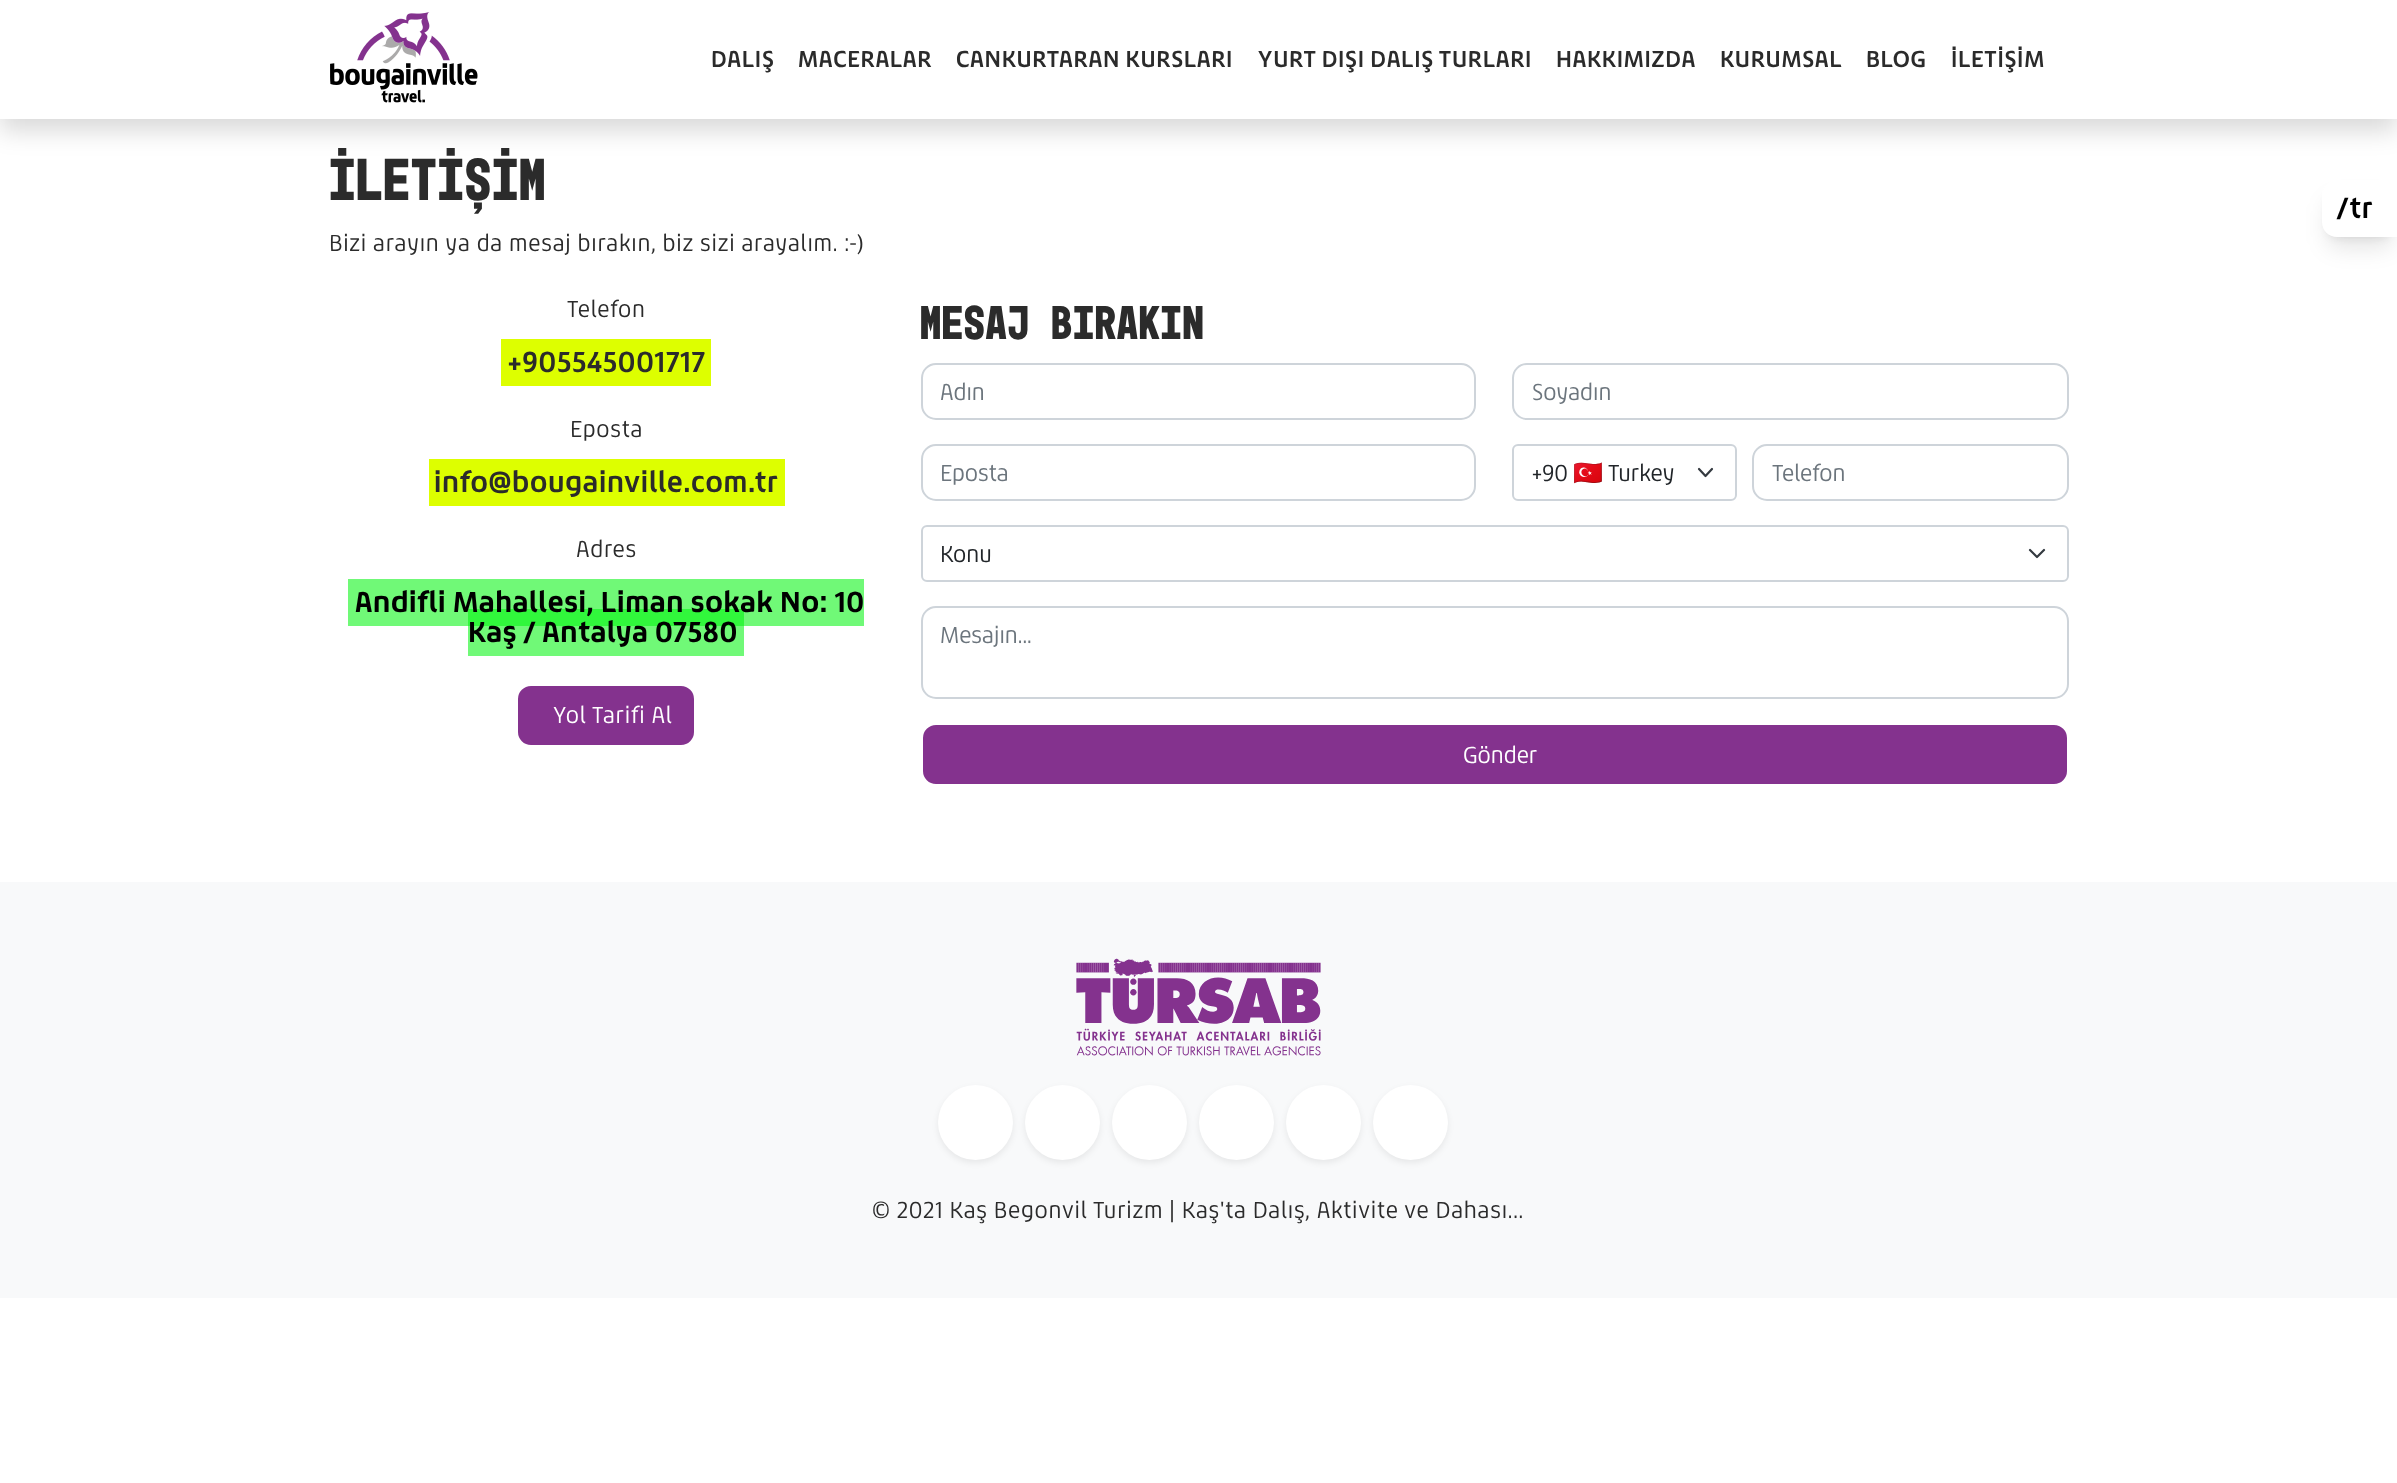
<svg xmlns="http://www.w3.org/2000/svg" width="2397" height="1483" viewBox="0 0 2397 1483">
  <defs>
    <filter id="blur1" x="-50%" y="-200%" width="200%" height="500%"><feGaussianBlur stdDeviation="12"/></filter>
    <filter id="blur2" x="-50%" y="-200%" width="200%" height="500%"><feGaussianBlur stdDeviation="4.5"/></filter>
    <filter id="blur3" x="-50%" y="-200%" width="200%" height="500%"><feGaussianBlur stdDeviation="11"/></filter>
    <filter id="blur4" x="-50%" y="-200%" width="200%" height="500%"><feGaussianBlur stdDeviation="3"/></filter>
  </defs>
  <rect width="100%" height="100%" fill="#ffffff"/>
  <rect x="468" y="626" width="276" height="30" fill="#70f977"/>
  <rect x="0" y="12" width="2397" height="119" fill="#000000" fill-opacity="0.15" filter="url(#blur1)"/>
  <rect x="0" y="0" width="2397" height="119" fill="#ffffff"/>
  <image x="330" y="12" width="148" height="91" href="img1.png"/>
  <text x="711" y="67" font-family="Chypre" font-size="24" font-weight="800" letter-spacing="0.75" fill="#2b2b2b">DALIŞ</text>
  <text x="798" y="67" font-family="Chypre" font-size="24" font-weight="800" letter-spacing="0.75" fill="#2b2b2b">MACERALAR</text>
  <text x="956" y="67" font-family="Chypre" font-size="24" font-weight="800" letter-spacing="0.75" fill="#2b2b2b">CANKURTARAN KURSLARI</text>
  <text x="1258" y="67" font-family="Chypre" font-size="24" font-weight="800" letter-spacing="0.75" fill="#2b2b2b">YURT DIŞI DALIŞ TURLARI</text>
  <text x="1556" y="67" font-family="Chypre" font-size="24" font-weight="800" letter-spacing="0.75" fill="#2b2b2b">HAKKIMIZDA</text>
  <text x="1720" y="67" font-family="Chypre" font-size="24" font-weight="800" letter-spacing="0.75" fill="#2b2b2b">KURUMSAL</text>
  <text x="1866" y="67" font-family="Chypre" font-size="24" font-weight="800" letter-spacing="0.75" fill="#2b2b2b">BLOG</text>
  <text x="1951" y="67" font-family="Chypre" font-size="24" font-weight="800" letter-spacing="0.75" fill="#2b2b2b">İLETİŞİM</text>
  <text x="329" y="200" font-family="'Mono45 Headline'" font-size="60" font-weight="bold" letter-spacing="0.75" fill="#2b2b2b">İLETİŞİM</text>
  <text x="329" y="251" font-family="Chypre" font-size="24" font-weight="500" letter-spacing="0.75" fill="#2b2b2b">Bizi arayın ya da mesaj bırakın, biz sizi arayalım. :-)</text>
  <text x="567" y="317" font-family="Chypre" font-size="24" font-weight="500" letter-spacing="0.75" fill="#2b2b2b">Telefon</text>
  <rect x="501" y="339" width="210" height="47" fill="#ddff00"/>
  <text x="508" y="372" font-family="Chypre" font-size="30" font-weight="800" letter-spacing="0.75" fill="#2b2b2b">+905545001717</text>
  <text x="570" y="437" font-family="Chypre" font-size="24" font-weight="500" letter-spacing="0.75" fill="#2b2b2b">Eposta</text>
  <rect x="429" y="459" width="356" height="47" fill="#ddff00"/>
  <text x="434" y="492" font-family="Chypre" font-size="30" font-weight="800" letter-spacing="0.75" fill="#2b2b2b">info@bougainville.com.tr</text>
  <text x="576" y="557" font-family="Chypre" font-size="24" font-weight="500" letter-spacing="0.75" fill="#2b2b2b">Adres</text>
  <rect x="348" y="579" width="516" height="47" fill="#70f977"/>
  <rect x="468" y="609" width="276" height="17" fill="#31f73c"/>
  <text x="355" y="612" font-family="Chypre" font-size="30" font-weight="900" letter-spacing="0.75" fill="#000000">Andifli Mahallesi, Liman sokak No: 10</text>
  <text x="468" y="642" font-family="Chypre" font-size="30" font-weight="900" letter-spacing="0.75" fill="#000000">Kaş / Antalya 07580</text>
  <rect x="517" y="685" width="178" height="61" rx="14" fill="#84328e" stroke="#ffffff" stroke-width="2"/>
  <text x="553" y="723" font-family="Chypre" font-size="24" font-weight="500" letter-spacing="0.75" fill="#ffffff">Yol Tarifi Al</text>
  <text x="920" y="339" font-family="'Mono45 Headline'" font-size="48" font-weight="bold" letter-spacing="0.75" fill="#2b2b2b">MESAJ BIRAKIN</text>
  <rect x="922" y="364" width="553" height="55" rx="14" fill="none" stroke="#ced4da" stroke-width="2"/>
  <text x="940" y="400" font-family="Chypre" font-size="24" font-weight="500" fill="#6c757d">Adın</text>
  <rect x="1513" y="364" width="555" height="55" rx="14" fill="none" stroke="#ced4da" stroke-width="2"/>
  <text x="1532" y="400" font-family="Chypre" font-size="24" font-weight="500" fill="#6c757d">Soyadın</text>
  <rect x="922" y="445" width="553" height="55" rx="14" fill="none" stroke="#ced4da" stroke-width="2"/>
  <text x="940" y="481" font-family="Chypre" font-size="24" font-weight="500" fill="#6c757d">Eposta</text>
  <path d="M1699 469L1705.5 476L1712 469" fill="none" stroke="#343a40" stroke-width="2.2" stroke-linecap="round" stroke-linejoin="round"/>
  <rect x="1513" y="445" width="223" height="55" rx="5" fill="none" stroke="#ced4da" stroke-width="2"/>
  <text x="1532" y="481" font-family="Chypre" font-size="24" font-weight="500" fill="#212529">+90</text>
  <text x="1573" y="481" font-family="Noto Color Emoji" font-size="24" fill="#212529">🇹🇷</text>
  <text x="1608" y="481" font-family="Chypre" font-size="24" font-weight="500" fill="#212529">Turkey</text>
  <rect x="1753" y="445" width="315" height="55" rx="14" fill="none" stroke="#ced4da" stroke-width="2"/>
  <text x="1772" y="481" font-family="Chypre" font-size="24" font-weight="500" fill="#6c757d">Telefon</text>
  <path d="M2030 550L2037 557L2044 550" fill="none" stroke="#343a40" stroke-width="2.2" stroke-linecap="round" stroke-linejoin="round"/>
  <rect x="922" y="526" width="1146" height="55" rx="5" fill="none" stroke="#ced4da" stroke-width="2"/>
  <text x="940" y="562" font-family="Chypre" font-size="24" font-weight="500" fill="#212529">Konu</text>
  <rect x="922" y="607" width="1146" height="91" rx="14" fill="none" stroke="#ced4da" stroke-width="2"/>
  <text x="940" y="643" font-family="Chypre" font-size="24" font-weight="500" fill="#6c757d">Mesajın...</text>
  <rect x="922" y="724" width="1146" height="61" rx="14" fill="#84328e" stroke="#ffffff" stroke-width="2"/>
  <text x="1463" y="763" font-family="Chypre" font-size="24" font-weight="500" fill="#ffffff">Gönder</text>
  <rect x="2328" y="192" width="63" height="45" rx="9" fill="#000000" fill-opacity="0.1" filter="url(#blur2)"/>
  <rect x="2327" y="200" width="66" height="48" rx="11" fill="#000000" fill-opacity="0.1" filter="url(#blur3)"/>
  <path d="M2337 180H2397V237H2337C2328.5 237 2322 230.5 2322 222V195C2322 186.5 2328.5 180 2337 180Z" fill="#ffffff"/>
  <text x="2336" y="218" font-family="Chypre" font-size="30" font-weight="800" letter-spacing="0.75" fill="#000000">/tr</text>
  <rect x="0" y="882" width="2397" height="416" fill="#f8f9fa"/>
  <image x="1076" y="958" width="245" height="98" href="img2.png"/>
  <rect x="938" y="1088" width="75" height="75" rx="37.5" fill="#000000" fill-opacity="0.07" filter="url(#blur4)"/>
  <circle cx="975.5" cy="1122.5" r="37.5" fill="#ffffff"/>
  <rect x="1025" y="1088" width="75" height="75" rx="37.5" fill="#000000" fill-opacity="0.07" filter="url(#blur4)"/>
  <circle cx="1062.5" cy="1122.5" r="37.5" fill="#ffffff"/>
  <rect x="1112" y="1088" width="75" height="75" rx="37.5" fill="#000000" fill-opacity="0.07" filter="url(#blur4)"/>
  <circle cx="1149.5" cy="1122.5" r="37.5" fill="#ffffff"/>
  <rect x="1199" y="1088" width="75" height="75" rx="37.5" fill="#000000" fill-opacity="0.07" filter="url(#blur4)"/>
  <circle cx="1236.5" cy="1122.5" r="37.5" fill="#ffffff"/>
  <rect x="1286" y="1088" width="75" height="75" rx="37.5" fill="#000000" fill-opacity="0.07" filter="url(#blur4)"/>
  <circle cx="1323.5" cy="1122.5" r="37.5" fill="#ffffff"/>
  <rect x="1373" y="1088" width="75" height="75" rx="37.5" fill="#000000" fill-opacity="0.07" filter="url(#blur4)"/>
  <circle cx="1410.5" cy="1122.5" r="37.5" fill="#ffffff"/>
  <text x="872" y="1218" font-family="Chypre" font-size="24" font-weight="500" letter-spacing="0.75" fill="#2b2b2b">© 2021 Kaş Begonvil Turizm | Kaş'ta Dalış, Aktivite ve Dahası...</text>
</svg>
